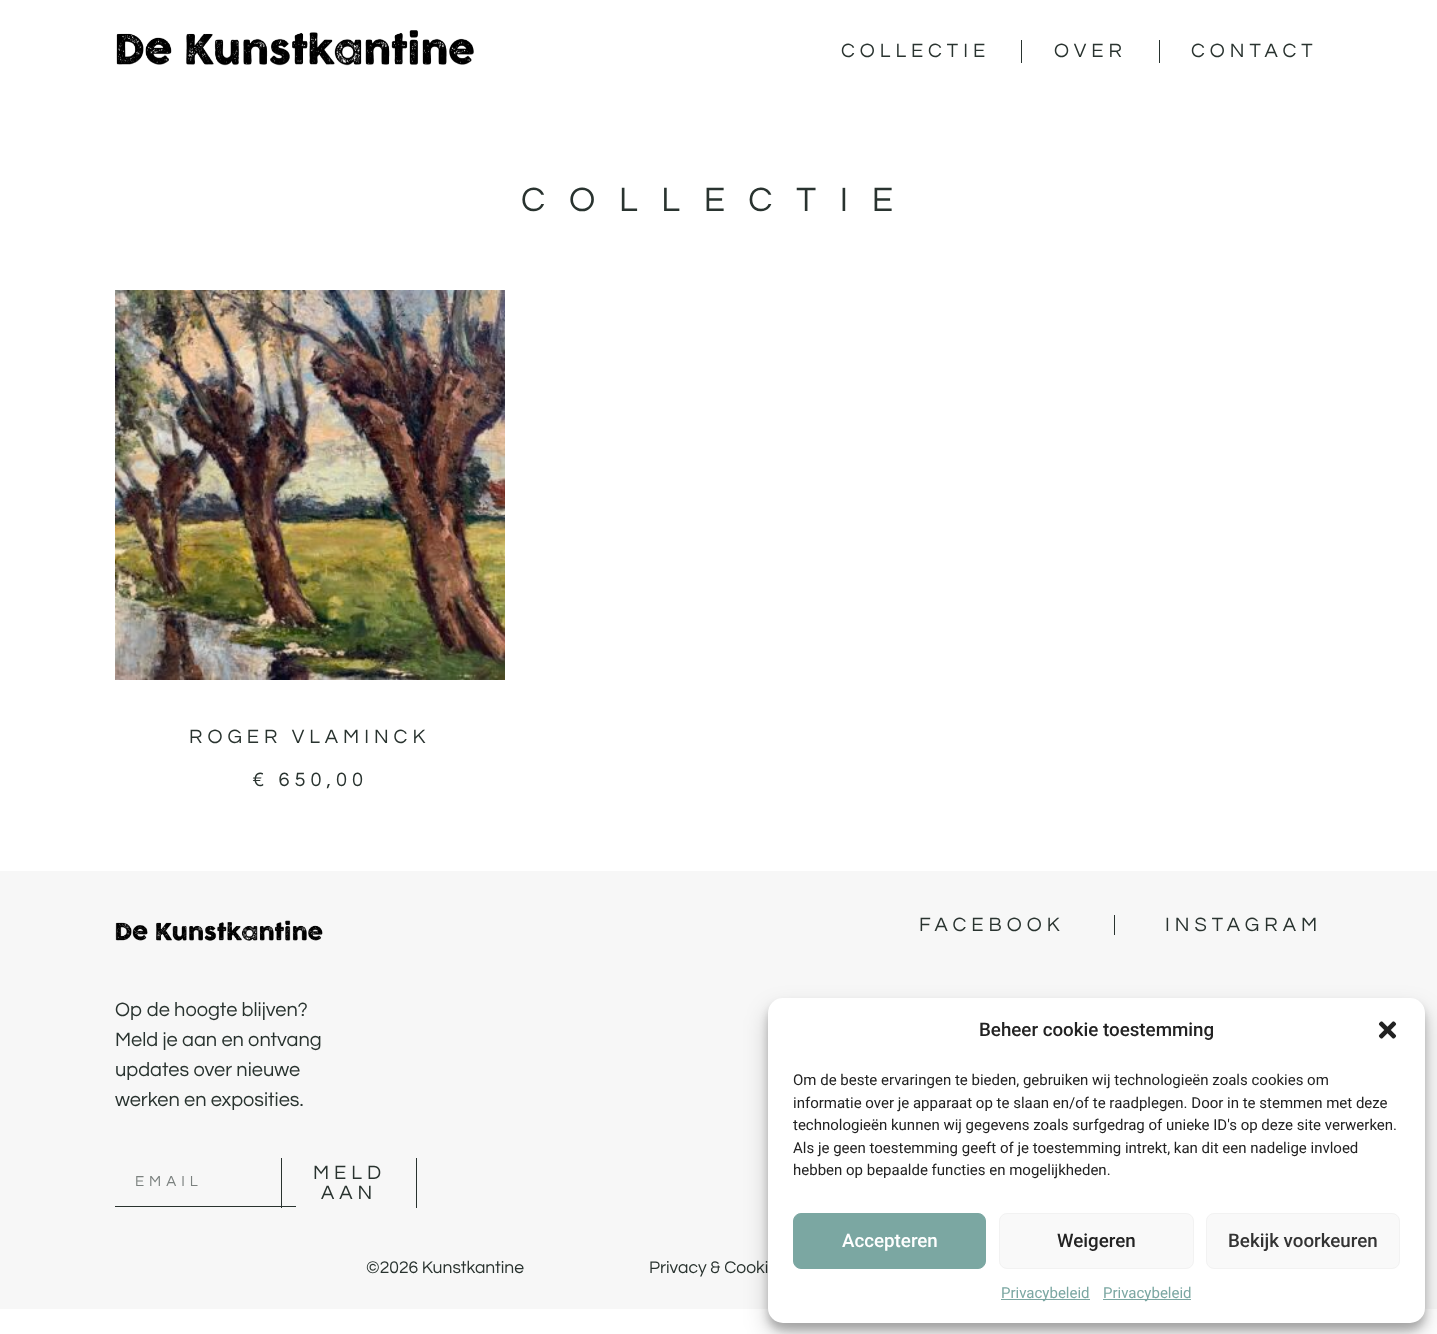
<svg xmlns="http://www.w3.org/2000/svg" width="1437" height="1334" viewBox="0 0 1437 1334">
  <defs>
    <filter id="blur1" x="-50%" y="-200%" width="200%" height="500%"><feGaussianBlur stdDeviation="4"/></filter>
    <filter id="blur2" x="-50%" y="-200%" width="200%" height="500%"><feGaussianBlur stdDeviation="12.5"/></filter>
  </defs>
  <rect width="100%" height="100%" fill="#ffffff"/>
  <image x="116" y="30" width="358" height="36" href="img1.png"/>
  <text x="841" y="57" font-family="Questrial" font-size="20" letter-spacing="5" fill="#29332f">COLLECTIE</text>
  <rect x="1021" y="40" width="1" height="23" fill="#29332f"/>
  <text x="1054" y="57" font-family="Questrial" font-size="20" letter-spacing="5" fill="#29332f">OVER</text>
  <rect x="1159" y="40" width="1" height="23" fill="#29332f"/>
  <text x="1191" y="57" font-family="Questrial" font-size="20" letter-spacing="5" fill="#29332f">CONTACT</text>
  <text x="521" y="211" font-family="Questrial" font-size="35" letter-spacing="23.75" fill="#29332f">COLLECTIE</text>
  <image x="115" y="290" width="390" height="390" href="img2.png"/>
  <text x="189" y="743" font-family="Questrial" font-size="20" letter-spacing="5" fill="#29332f">ROGER VLAMINCK</text>
  <text x="252" y="786" font-family="Questrial" font-size="20" letter-spacing="5" fill="#29332f">€ 650,00</text>
  <rect x="0" y="871" width="1437" height="438" fill="#f7f7f7"/>
  <text x="919" y="931" font-family="Questrial" font-size="20" letter-spacing="5" fill="#29332f">FACEBOOK</text>
  <rect x="1114" y="915" width="1" height="20" fill="#29332f"/>
  <text x="1165" y="931" font-family="Questrial" font-size="20" letter-spacing="5" fill="#29332f">INSTAGRAM</text>
  <image x="115" y="920" width="208" height="21" href="img3.png"/>
  <text x="115" y="1016" font-family="Questrial" font-size="20" fill="#29332f">Op de hoogte blijven?</text>
  <text x="115" y="1046" font-family="Questrial" font-size="20" fill="#29332f">Meld je aan en ontvang</text>
  <text x="115" y="1076" font-family="Questrial" font-size="20" fill="#29332f">updates over nieuwe</text>
  <text x="115" y="1106" font-family="Questrial" font-size="20" fill="#29332f">werken en exposities.</text>
  <rect x="115" y="1206" width="181" height="1" fill="#29332f"/>
  <text x="135" y="1186" font-family="Questrial" font-size="15" letter-spacing="5" fill="#7b817f">EMAIL</text>
  <rect x="416" y="1158" width="1" height="50" fill="#29332f"/>
  <rect x="281" y="1158" width="1" height="50" fill="#29332f"/>
  <text x="313" y="1179" font-family="Questrial" font-size="20" letter-spacing="5" fill="#29332f">MELD</text>
  <text x="321" y="1199" font-family="Questrial" font-size="20" letter-spacing="5" fill="#29332f">AAN</text>
  <text x="366" y="1273" font-family="Questrial" font-size="17.5" fill="#29332f">©2026 Kunstkantine</text>
  <text x="649" y="1273" font-family="Questrial" font-size="17.5" fill="#29332f">Privacy &amp; Cooki</text>
  <rect x="768" y="1005" width="657" height="325" rx="15" fill="#000000" fill-opacity="0.23" filter="url(#blur1)"/>
  <rect x="768" y="1010" width="657" height="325" rx="15" fill="#000000" fill-opacity="0.19" filter="url(#blur2)"/>
  <rect x="768" y="998" width="657" height="325" rx="15" fill="#ffffff"/>
  <text x="979" y="1036" font-family="Roboto" font-size="18.75" font-weight="500" fill="#222222">Beheer cookie toestemming</text>
  <image x="1378" y="1021" width="19" height="18" href="img4.png"/>
  <text x="793" y="1085" font-family="Roboto" font-size="15" fill="#222222">Om de beste ervaringen te bieden, gebruiken wij technologieën zoals cookies om</text>
  <text x="793" y="1108" font-family="Roboto" font-size="15" fill="#222222">informatie over je apparaat op te slaan en/of te raadplegen. Door in te stemmen met deze</text>
  <text x="793" y="1130" font-family="Roboto" font-size="15" fill="#222222">technologieën kunnen wij gegevens zoals surfgedrag of unieke ID's op deze site verwerken.</text>
  <text x="793" y="1153" font-family="Roboto" font-size="15" fill="#222222">Als je geen toestemming geeft of je toestemming intrekt, kan dit een nadelige invloed</text>
  <text x="793" y="1175" font-family="Roboto" font-size="15" fill="#222222">hebben op bepaalde functies en mogelijkheden.</text>
  <rect x="793.5" y="1213.5" width="192" height="55" rx="7.5" fill="#7ba7a2" stroke="#7ba7a2"/>
  <text x="842" y="1247" font-family="Roboto" font-size="18.75" font-weight="500" fill="#ffffff">Accepteren</text>
  <rect x="999.5" y="1213.5" width="194" height="55" rx="7.5" fill="#f9f9f9" stroke="#f2f2f2"/>
  <text x="1057" y="1247" font-family="Roboto" font-size="18.75" font-weight="500" fill="#222222">Weigeren</text>
  <rect x="1206.5" y="1213.5" width="193" height="55" rx="7.5" fill="#f9f9f9" stroke="#f2f2f2"/>
  <text x="1228" y="1247" font-family="Roboto" font-size="18.75" font-weight="500" fill="#333333">Bekijk voorkeuren</text>
  <rect x="1001" y="1299" width="89" height="1" fill="#7ba7a2"/>
  <text x="1001" y="1298" font-family="Roboto" font-size="15" fill="#7ba7a2">Privacybeleid</text>
  <rect x="1103" y="1299" width="88" height="1" fill="#7ba7a2"/>
  <text x="1103" y="1298" font-family="Roboto" font-size="15" fill="#7ba7a2">Privacybeleid</text>
</svg>
